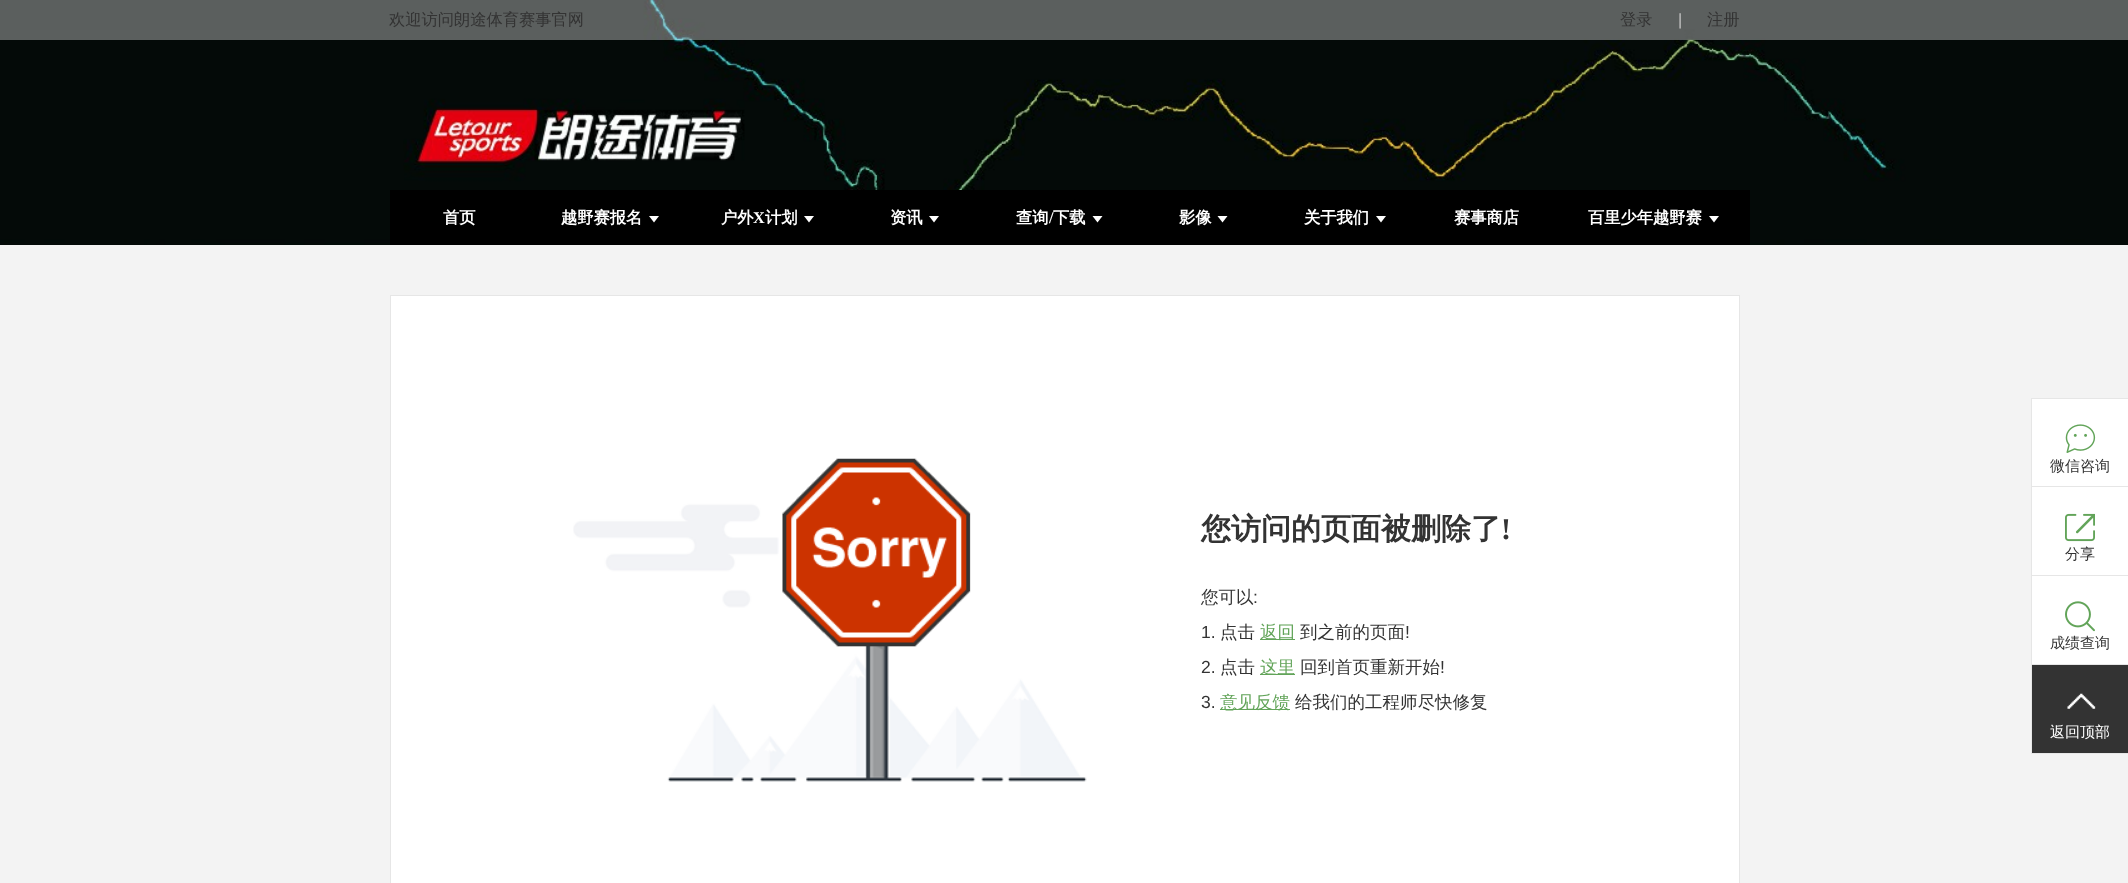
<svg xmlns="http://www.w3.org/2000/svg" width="2128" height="883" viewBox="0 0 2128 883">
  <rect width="100%" height="100%" fill="#f3f3f3"/>
  <image x="0" y="0" width="2128" height="245" href="img1.png"/>
  <rect x="0" y="0" width="2128" height="40" fill="#ffffff" fill-opacity="0.35"/>
  <text x="389" y="25" font-family="WenQuanYi Zen Hei" font-size="16.25" font-weight="500" fill="#333333">欢迎访问朗途体育赛事官网</text>
  <text x="1620" y="25" font-family="WenQuanYi Zen Hei" font-size="16.25" font-weight="500" fill="#333333">登录</text>
  <text x="1678" y="25" font-family="Liberation Sans" font-size="16.25" fill="#c3c3c3">|</text>
  <text x="1707" y="25" font-family="WenQuanYi Zen Hei" font-size="16.25" font-weight="500" fill="#333333">注册</text>
  <rect x="390" y="190" width="1360" height="55" fill="#000000"/>
  <text x="443" y="223" font-family="WenQuanYi Zen Hei" font-size="16.25" font-weight="bold" fill="#ffffff">首页</text>
  <text x="561" y="223" font-family="WenQuanYi Zen Hei" font-size="16.25" font-weight="bold" fill="#ffffff">越野赛报名</text>
  <path d="M649 216H659L654 222.5Z" fill="#ffffff"/>
  <text x="721" y="223" font-family="WenQuanYi Zen Hei" font-size="16.25" font-weight="bold" fill="#ffffff">户外</text>
  <text x="753" y="223" font-family="Liberation Serif" font-size="16.25" font-weight="bold" fill="#ffffff">X</text>
  <text x="765" y="223" font-family="WenQuanYi Zen Hei" font-size="16.25" font-weight="bold" fill="#ffffff">计划</text>
  <path d="M804 216H814L809 222.5Z" fill="#ffffff"/>
  <text x="890" y="223" font-family="WenQuanYi Zen Hei" font-size="16.25" font-weight="bold" fill="#ffffff">资讯</text>
  <path d="M929 216H939L934 222.5Z" fill="#ffffff"/>
  <text x="1016" y="223" font-family="WenQuanYi Zen Hei" font-size="16.25" font-weight="bold" fill="#ffffff">查询</text>
  <text x="1049" y="223" font-family="Liberation Serif" font-size="16.25" font-weight="bold" fill="#ffffff">/</text>
  <text x="1053" y="223" font-family="WenQuanYi Zen Hei" font-size="16.25" font-weight="bold" fill="#ffffff">下载</text>
  <path d="M1092.5 216H1102.5L1097.5 222.5Z" fill="#ffffff"/>
  <text x="1179" y="223" font-family="WenQuanYi Zen Hei" font-size="16.25" font-weight="bold" fill="#ffffff">影像</text>
  <path d="M1217.5 216H1227.5L1222.5 222.5Z" fill="#ffffff"/>
  <text x="1304" y="223" font-family="WenQuanYi Zen Hei" font-size="16.25" font-weight="bold" fill="#ffffff">关于我们</text>
  <path d="M1376 216H1386L1381 222.5Z" fill="#ffffff"/>
  <text x="1454" y="223" font-family="WenQuanYi Zen Hei" font-size="16.25" font-weight="bold" fill="#ffffff">赛事商店</text>
  <text x="1588" y="223" font-family="WenQuanYi Zen Hei" font-size="16.25" font-weight="bold" fill="#ffffff">百里少年越野赛</text>
  <path d="M1709 216H1719L1714 222.5Z" fill="#ffffff"/>
  <rect x="391" y="296" width="1348" height="587" fill="#ffffff"/>
  <image x="573" y="458" width="514" height="324" href="img2.png"/>
  <rect x="390.5" y="295.5" width="1349" height="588" fill="none" stroke="#e6e6e6"/>
  <text x="1201" y="539" font-family="WenQuanYi Zen Hei" font-size="30" font-weight="bold" fill="#333333">您访问的页面被删除了</text>
  <text x="1501" y="539" font-family="Liberation Serif" font-size="30" font-weight="bold" fill="#333333">!</text>
  <text x="1201" y="603" font-family="WenQuanYi Zen Hei" font-size="17.5" font-weight="500" fill="#333333">您可以</text>
  <text x="1253" y="603" font-family="Liberation Sans" font-size="17.5" fill="#333333">:</text>
  <text x="1201" y="638" font-family="Liberation Sans" font-size="17.5" fill="#333333">1.</text>
  <text x="1220" y="638" font-family="WenQuanYi Zen Hei" font-size="17.5" font-weight="500" fill="#333333">点击</text>
  <rect x="1260" y="639" width="35" height="1" fill="#62a459"/>
  <text x="1260" y="638" font-family="WenQuanYi Zen Hei" font-size="17.5" font-weight="500" fill="#62a459">返回</text>
  <text x="1300" y="638" font-family="WenQuanYi Zen Hei" font-size="17.5" font-weight="500" fill="#333333">到之前的页面</text>
  <text x="1405" y="638" font-family="Liberation Sans" font-size="17.5" fill="#333333">!</text>
  <text x="1201" y="673" font-family="Liberation Sans" font-size="17.5" fill="#333333">2.</text>
  <text x="1220" y="673" font-family="WenQuanYi Zen Hei" font-size="17.5" font-weight="500" fill="#333333">点击</text>
  <rect x="1260" y="674" width="35" height="1" fill="#62a459"/>
  <text x="1260" y="673" font-family="WenQuanYi Zen Hei" font-size="17.5" font-weight="500" fill="#62a459">这里</text>
  <text x="1300" y="673" font-family="WenQuanYi Zen Hei" font-size="17.5" font-weight="500" fill="#333333">回到首页重新开始</text>
  <text x="1440" y="673" font-family="Liberation Sans" font-size="17.5" fill="#333333">!</text>
  <text x="1201" y="708" font-family="Liberation Sans" font-size="17.5" fill="#333333">3.</text>
  <rect x="1220" y="709" width="70" height="1" fill="#62a459"/>
  <text x="1220" y="708" font-family="WenQuanYi Zen Hei" font-size="17.5" font-weight="500" fill="#62a459">意见反馈</text>
  <text x="1295" y="708" font-family="WenQuanYi Zen Hei" font-size="17.5" font-weight="500" fill="#333333">给我们的工程师尽快修复</text>
  <rect x="2032" y="399" width="96" height="87" fill="#ffffff"/>
  <rect x="2031.5" y="398.5" width="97" height="89" fill="none" stroke="#e6e6e6"/>
  <image x="2065" y="424" width="31" height="29" href="img3.png"/>
  <text x="2050" y="471" font-family="WenQuanYi Zen Hei" font-size="15" font-weight="500" fill="#333333">微信咨询</text>
  <rect x="2031.5" y="486.5" width="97" height="89" fill="#ffffff" stroke="#e6e6e6"/>
  <image x="2065" y="513" width="30" height="29" href="img4.png"/>
  <text x="2065" y="559" font-family="WenQuanYi Zen Hei" font-size="15" font-weight="500" fill="#333333">分享</text>
  <rect x="2031.5" y="575.5" width="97" height="89" fill="#ffffff" stroke="#e6e6e6"/>
  <image x="2065" y="601" width="30" height="31" href="img5.png"/>
  <text x="2050" y="648" font-family="WenQuanYi Zen Hei" font-size="15" font-weight="500" fill="#333333">成绩查询</text>
  <rect x="2032" y="665" width="96" height="88" fill="#333333"/>
  <image x="2067" y="693" width="29" height="16" href="img6.png"/>
  <rect x="2031.5" y="664.5" width="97" height="89" fill="none" stroke="#e6e6e6"/>
  <text x="2050" y="737" font-family="WenQuanYi Zen Hei" font-size="15" font-weight="500" fill="#ffffff">返回顶部</text>
</svg>
